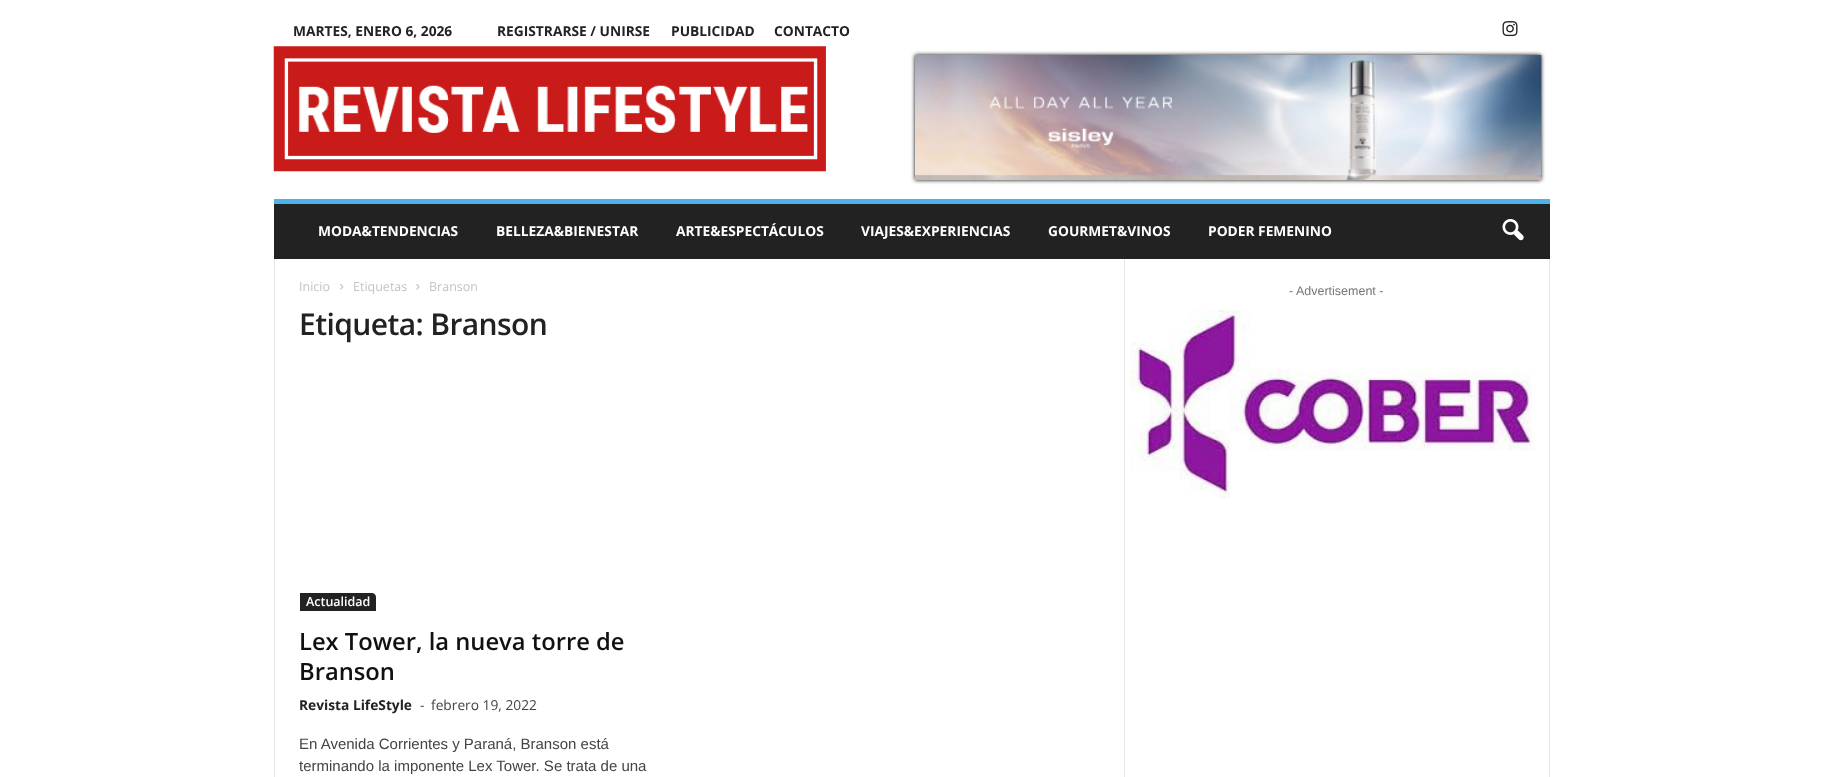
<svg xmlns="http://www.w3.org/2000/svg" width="1822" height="777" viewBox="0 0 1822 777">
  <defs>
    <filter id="blur1" x="-50%" y="-200%" width="200%" height="500%"><feGaussianBlur stdDeviation="2"/></filter>
  </defs>
  <rect width="100%" height="100%" fill="#ffffff"/>
  <text x="293" y="36" font-family="Open Sans" font-size="13.75" font-weight="bold" fill="#222222">MARTES, ENERO 6, 2026</text>
  <text x="497" y="36" font-family="Open Sans" font-size="13.75" font-weight="bold" fill="#222222">REGISTRARSE / UNIRSE</text>
  <text x="671" y="36" font-family="Open Sans" font-size="13.75" font-weight="bold" fill="#222222">PUBLICIDAD</text>
  <text x="774" y="36" font-family="Open Sans" font-size="13.75" font-weight="bold" fill="#222222">CONTACTO</text>
  <image x="1502" y="21" width="16" height="16" href="img1.png"/>
  <image x="273" y="46" width="553" height="126" href="img2.png"/>
  <rect x="915" y="55" width="626" height="125" fill="#000000" filter="url(#blur1)"/>
  <image x="915" y="55" width="627" height="125" href="img3.png"/>
  <rect x="274" y="204" width="1276" height="55" fill="#222222"/>
  <rect x="274" y="199" width="1276" height="5" fill="#4db2ec"/>
  <text x="318" y="236" font-family="Open Sans" font-size="13.75" font-weight="bold" fill="#ffffff">MODA&amp;TENDENCIAS</text>
  <text x="496" y="236" font-family="Open Sans" font-size="13.75" font-weight="bold" fill="#ffffff">BELLEZA&amp;BIENESTAR</text>
  <text x="676" y="236" font-family="Open Sans" font-size="13.75" font-weight="bold" fill="#ffffff">ARTE&amp;ESPECTÁCULOS</text>
  <text x="861" y="236" font-family="Open Sans" font-size="13.75" font-weight="bold" fill="#ffffff">VIAJES&amp;EXPERIENCIAS</text>
  <text x="1048" y="236" font-family="Open Sans" font-size="13.75" font-weight="bold" fill="#ffffff">GOURMET&amp;VINOS</text>
  <text x="1208" y="236" font-family="Open Sans" font-size="13.75" font-weight="bold" fill="#ffffff">PODER FEMENINO</text>
  <image x="1502" y="219" width="22" height="22" href="img4.png"/>
  <rect x="274" y="259" width="1" height="518" fill="#e6e6e6"/>
  <text x="299" y="291" font-family="Open Sans" font-size="12.5" fill="#c3c3c3">Inicio</text>
  <image x="340" y="284" width="4" height="6" href="img5.png"/>
  <text x="353" y="291" font-family="Open Sans" font-size="12.5" fill="#c3c3c3">Etiquetas</text>
  <image x="416" y="284" width="4" height="6" href="img6.png"/>
  <text x="429" y="291" font-family="Open Sans" font-size="12.5" fill="#c3c3c3">Branson</text>
  <text x="299" y="335" font-family="Open Sans" font-size="30" font-weight="600" letter-spacing="-0.6" fill="#222222">Etiqueta: Branson</text>
  <path d="M300 593H372C374 593 376 595 376 597V611H300Z" fill="#222222"/>
  <text x="306" y="606" font-family="Open Sans" font-size="12.5" font-weight="600" fill="#ffffff">Actualidad</text>
  <text x="299" y="650" font-family="Open Sans" font-size="23.75" font-weight="600" fill="#111111">Lex Tower, la nueva torre de</text>
  <text x="299" y="680" font-family="Open Sans" font-size="23.75" font-weight="600" fill="#111111">Branson</text>
  <text x="299" y="710" font-family="Open Sans" font-size="13.75" font-weight="bold" fill="#222222">Revista LifeStyle</text>
  <text x="420" y="710" font-family="Open Sans" font-size="13.75" fill="#444444">-</text>
  <text x="431" y="710" font-family="Open Sans" font-size="13.75" fill="#444444">febrero 19, 2022</text>
  <text x="299" y="749" font-family="Liberation Sans" font-size="15" fill="#444444">En Avenida Corrientes y Paraná, Branson está</text>
  <text x="299" y="771" font-family="Liberation Sans" font-size="15" fill="#444444">terminando la imponente Lex Tower. Se trata de una</text>
  <rect x="1124" y="259" width="1" height="518" fill="#e6e6e6"/>
  <text x="1289" y="295" font-family="Liberation Sans" font-size="12.5" fill="#767676">- Advertisement -</text>
  <image x="1130" y="310" width="406" height="189" href="img7.png"/>
  <rect x="1549" y="259" width="1" height="518" fill="#e6e6e6"/>
</svg>
